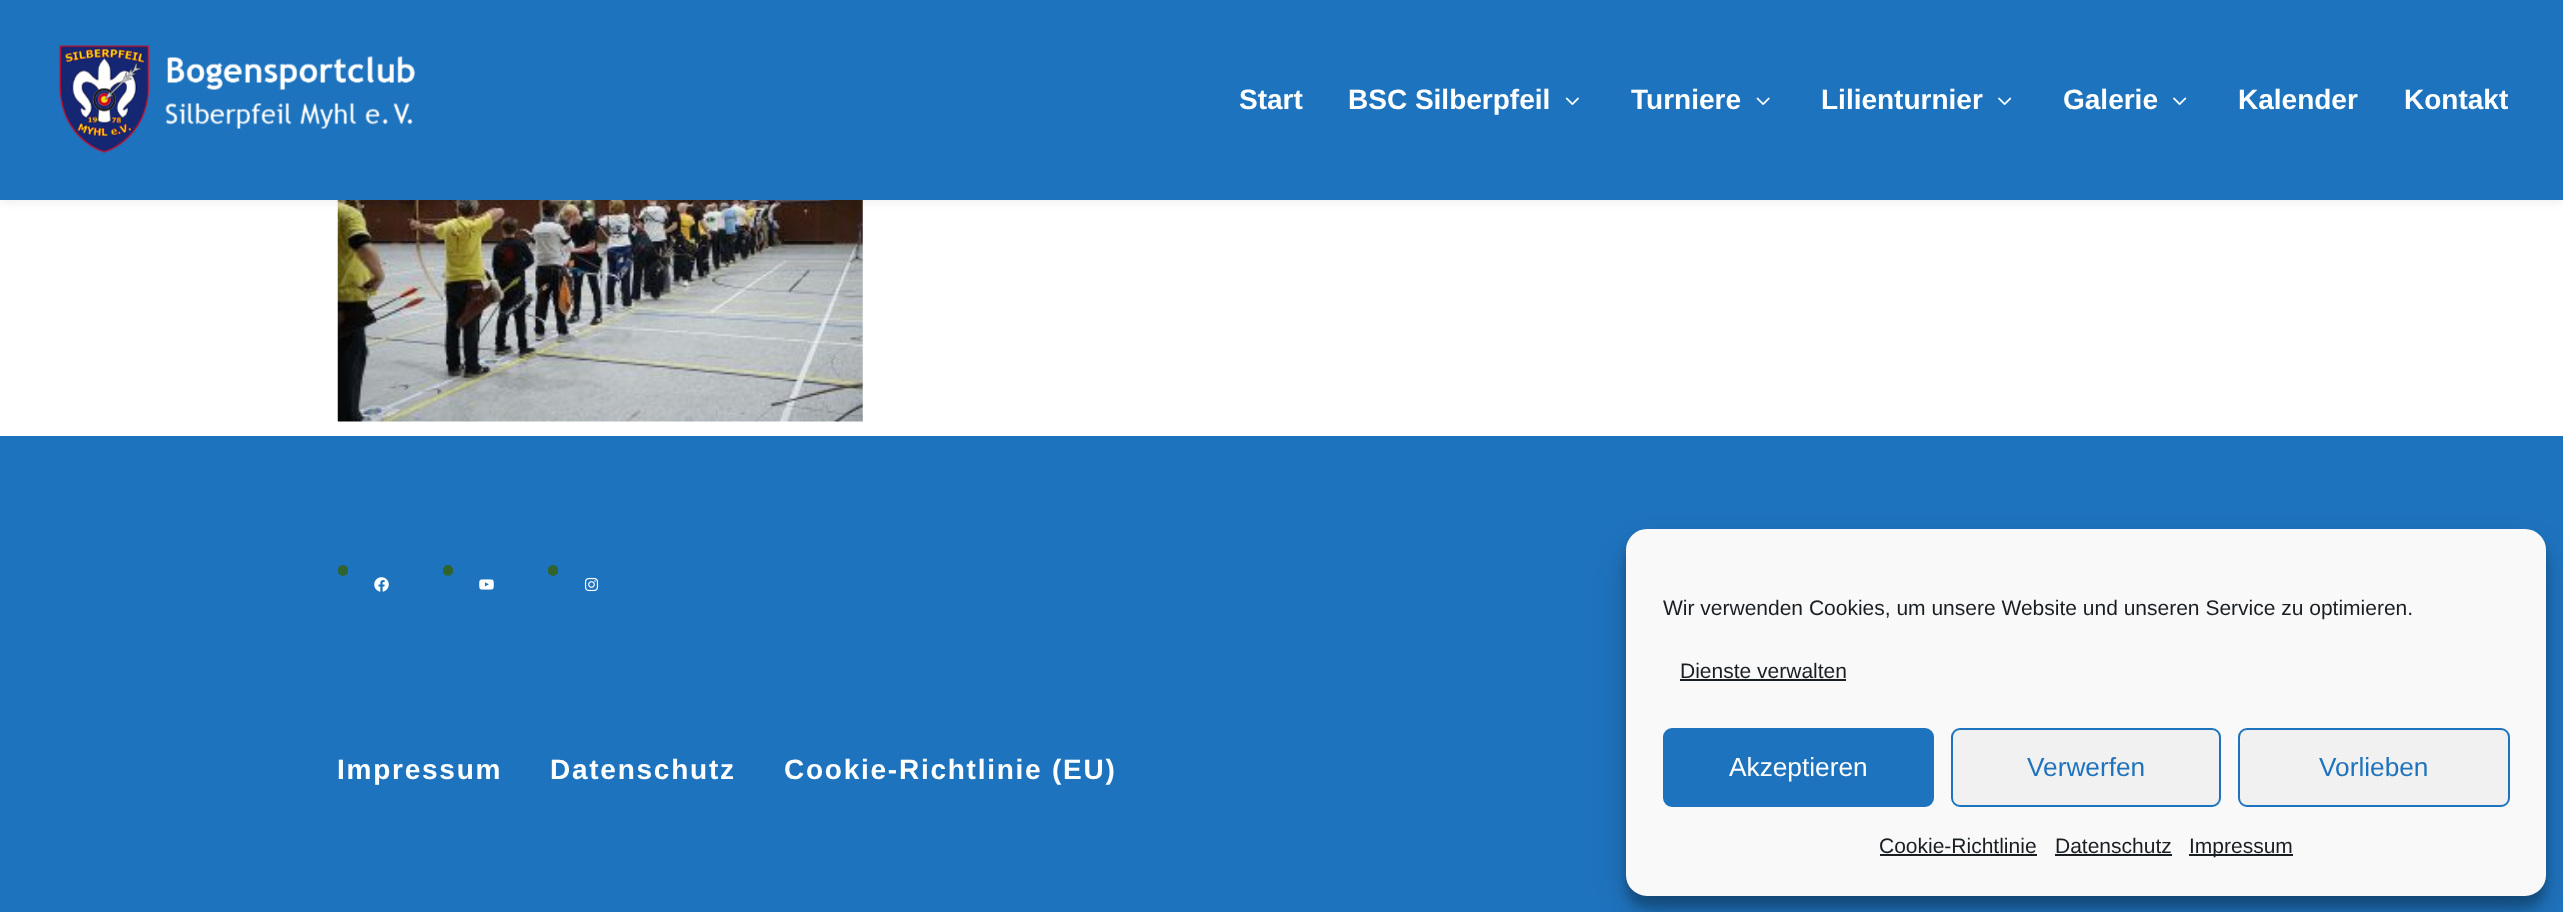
<svg xmlns="http://www.w3.org/2000/svg" width="2563" height="912" viewBox="0 0 2563 912">
  <defs>
    <filter id="blur1" x="-50%" y="-200%" width="200%" height="500%"><feGaussianBlur stdDeviation="6"/></filter>
    <filter id="blur2" x="-50%" y="-200%" width="200%" height="500%"><feGaussianBlur stdDeviation="5"/></filter>
    <filter id="blur3" x="-50%" y="-200%" width="200%" height="500%"><feGaussianBlur stdDeviation="17.5"/></filter>
  </defs>
  <rect width="100%" height="100%" fill="#ffffff"/>
  <image x="337" y="200" width="526" height="222" href="img5.png"/>
  <rect x="0" y="0" width="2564" height="200" fill="#000000" fill-opacity="0.1" filter="url(#blur1)"/>
  <rect x="0" y="0" width="2563" height="200" fill="#1e73be"/>
  <image x="58" y="45" width="357" height="109" href="img1.png"/>
  <text x="1239" y="109" font-family="Liberation Sans" font-size="28" font-weight="bold" fill="#ffffff">Start</text>
  <text x="1348" y="109" font-family="Liberation Sans" font-size="28" font-weight="bold" fill="#ffffff">BSC Silberpfeil</text>
  <image x="1565" y="97" width="14" height="8" href="img2.png"/>
  <text x="1631" y="109" font-family="Liberation Sans" font-size="28" font-weight="bold" fill="#ffffff">Turniere</text>
  <image x="1756" y="97" width="14" height="8" href="img3.png"/>
  <text x="1821" y="109" font-family="Liberation Sans" font-size="28" font-weight="bold" fill="#ffffff">Lilienturnier</text>
  <image x="1998" y="97" width="14" height="8" href="img4.png"/>
  <text x="2063" y="109" font-family="Liberation Sans" font-size="28" font-weight="bold" fill="#ffffff">Galerie</text>
  <image x="2173" y="97" width="14" height="8" href="img4.png"/>
  <text x="2238" y="109" font-family="Liberation Sans" font-size="28" font-weight="bold" fill="#ffffff">Kalender</text>
  <text x="2404" y="109" font-family="Liberation Sans" font-size="28" font-weight="bold" fill="#ffffff">Kontakt</text>
  <rect x="0" y="436" width="2563" height="476" fill="#1e73be"/>
  <rect x="338" y="565" width="10" height="11" rx="5" fill="#30642f"/>
  <image x="374" y="577" width="15" height="15" href="img6.png"/>
  <rect x="443" y="565" width="10" height="11" rx="5" fill="#30642f"/>
  <image x="479" y="579" width="15" height="11" href="img7.png"/>
  <rect x="548" y="565" width="10" height="11" rx="5" fill="#30642f"/>
  <image x="584" y="577" width="15" height="15" href="img8.png"/>
  <text x="337" y="779" font-family="Liberation Sans" font-size="28" font-weight="bold" letter-spacing="1.75" fill="#ffffff">Impressum</text>
  <text x="550" y="779" font-family="Liberation Sans" font-size="28" font-weight="bold" letter-spacing="1.75" fill="#ffffff">Datenschutz</text>
  <text x="784" y="779" font-family="Liberation Sans" font-size="28" font-weight="bold" letter-spacing="1.75" fill="#ffffff">Cookie-Richtlinie (EU)</text>
  <rect x="1626" y="539" width="920" height="368" rx="21" fill="#000000" fill-opacity="0.23" filter="url(#blur2)"/>
  <rect x="1626" y="546" width="920" height="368" rx="21" fill="#000000" fill-opacity="0.19" filter="url(#blur3)"/>
  <rect x="1627" y="530" width="918" height="365" rx="20" fill="#f9f9f9" stroke="#f9f9f9" stroke-width="2"/>
  <text x="1663" y="615" font-family="Liberation Sans" font-size="21" fill="#191e23">Wir verwenden Cookies, um unsere Website und unseren Service zu optimieren.</text>
  <text x="1680" y="678" font-family="Liberation Sans" font-size="21" fill="#191e23">Dienste verwalten</text>
  <rect x="1680" y="679" width="166" height="2" fill="#191e23"/>
  <rect x="1664" y="729" width="269" height="77" rx="8" fill="#1e73be" stroke="#1e73be" stroke-width="2"/>
  <text x="1729" y="776" font-family="Liberation Sans" font-size="26.25" fill="#ffffff">Akzeptieren</text>
  <rect x="1952" y="729" width="268" height="77" rx="8" fill="#f1f1f1" stroke="#1e73be" stroke-width="2"/>
  <text x="2027" y="776" font-family="Liberation Sans" font-size="26.25" fill="#1e73be">Verwerfen</text>
  <rect x="2239" y="729" width="270" height="77" rx="8" fill="#f1f1f1" stroke="#1e73be" stroke-width="2"/>
  <text x="2319" y="776" font-family="Liberation Sans" font-size="26.25" fill="#1e73be">Vorlieben</text>
  <text x="1879" y="853" font-family="Liberation Sans" font-size="21" fill="#191e23">Cookie-Richtlinie</text>
  <rect x="1880" y="854" width="157" height="2" fill="#191e23"/>
  <text x="2055" y="853" font-family="Liberation Sans" font-size="21" fill="#191e23">Datenschutz</text>
  <rect x="2055" y="854" width="117" height="2" fill="#191e23"/>
  <rect x="2189" y="854" width="104" height="2" fill="#191e23"/>
  <text x="2189" y="853" font-family="Liberation Sans" font-size="21" fill="#191e23">Impressum</text>
</svg>
